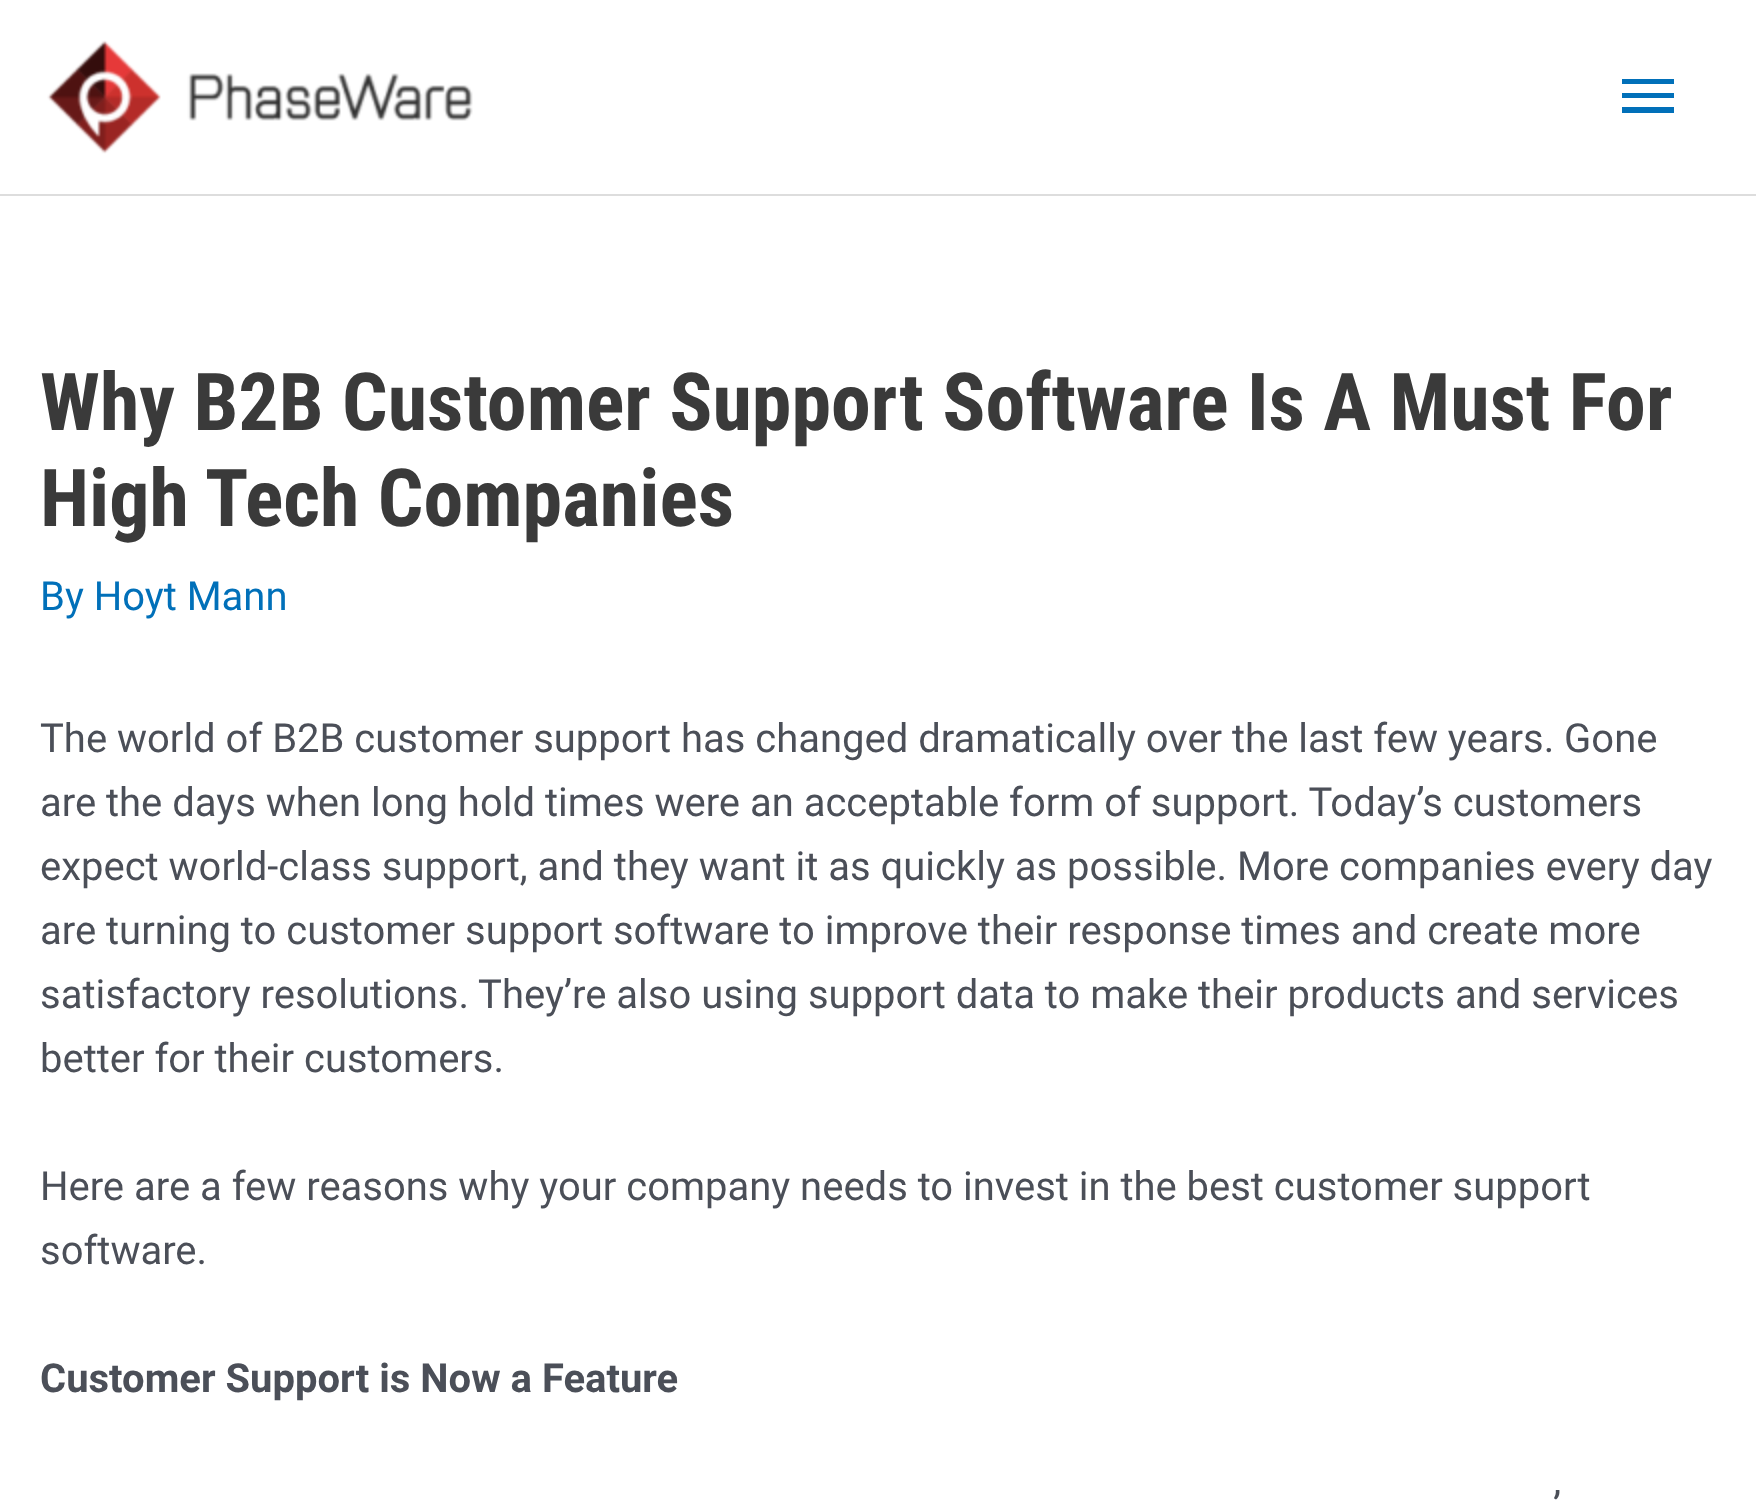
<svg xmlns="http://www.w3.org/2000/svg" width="1756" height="1506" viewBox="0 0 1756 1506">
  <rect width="100%" height="100%" fill="#ffffff"/>
  <rect x="0" y="194" width="1756" height="2" fill="#dddddd"/>
  <image x="47" y="40" width="426" height="114" href="img1.png"/>
  <path d="M1622 79H1674V84H1622ZM1622 98V93H1674V98ZM1622 113V107H1674V113Z" fill="#0170b9"/>
  <text x="40" y="430" font-family="Roboto Condensed" font-size="80" font-weight="bold" fill="#3a3a3a">Why B2B Customer Support Software Is A Must For</text>
  <text x="40" y="526" font-family="Roboto Condensed" font-size="80" font-weight="bold" fill="#3a3a3a">High Tech Companies</text>
  <text x="40" y="610" font-family="Roboto" font-size="40" fill="#0170b9">By Hoyt Mann</text>
  <text x="40" y="752" font-family="Roboto" font-size="40" fill="#4b4f58">The world of B2B customer support has changed dramatically over the last few years. Gone</text>
  <text x="40" y="816" font-family="Roboto" font-size="40" fill="#4b4f58">are the days when long hold times were an acceptable form of support. Today’s customers</text>
  <text x="40" y="880" font-family="Roboto" font-size="40" fill="#4b4f58">expect world-class support, and they want it as quickly as possible. More companies every day</text>
  <text x="40" y="944" font-family="Roboto" font-size="40" fill="#4b4f58">are turning to customer support software to improve their response times and create more</text>
  <text x="40" y="1008" font-family="Roboto" font-size="40" fill="#4b4f58">satisfactory resolutions. They’re also using support data to make their products and services</text>
  <text x="40" y="1072" font-family="Roboto" font-size="40" fill="#4b4f58">better for their customers.</text>
  <text x="40" y="1200" font-family="Roboto" font-size="40" fill="#4b4f58">Here are a few reasons why your company needs to invest in the best customer support</text>
  <text x="40" y="1264" font-family="Roboto" font-size="40" fill="#4b4f58">software.</text>
  <text x="40" y="1392" font-family="Roboto" font-size="40" font-weight="bold" fill="#4b4f58">Customer Support is Now a Feature</text>
  <text x="1553" y="1520" font-family="Roboto" font-size="40" fill="#4b4f58">’</text>
</svg>
